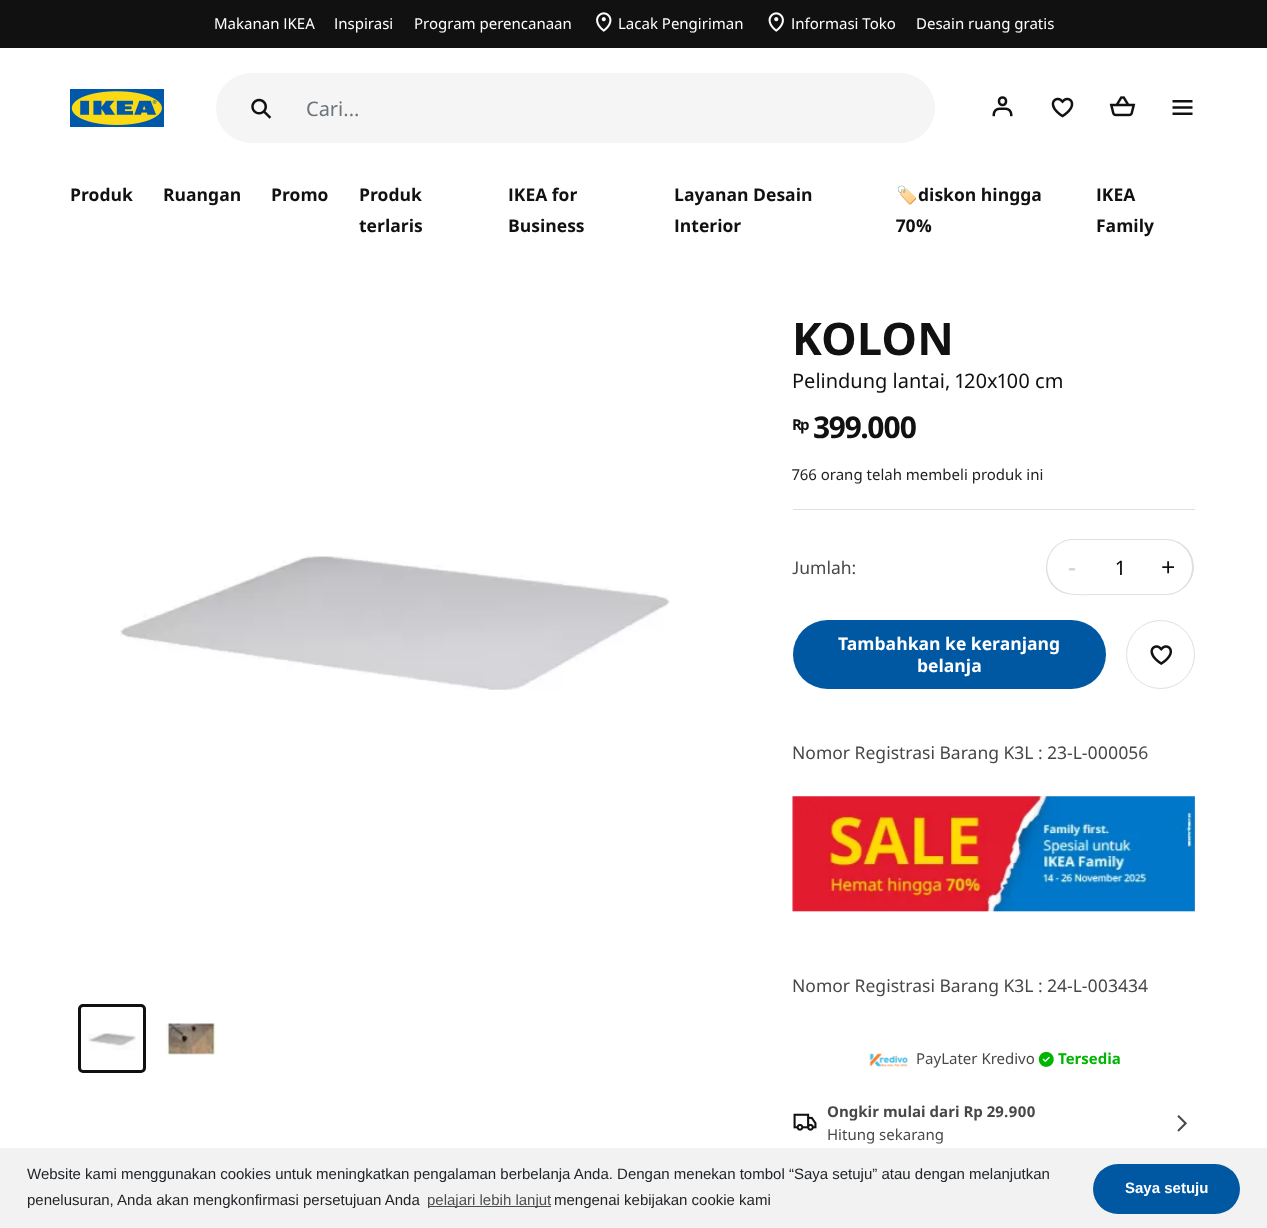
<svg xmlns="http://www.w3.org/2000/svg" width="1267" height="1228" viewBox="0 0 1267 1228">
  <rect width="100%" height="100%" fill="#ffffff"/>
  <rect x="0" y="0" width="1267" height="48" fill="#111111"/>
  <text x="214" y="29" font-family="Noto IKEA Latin" font-size="15" fill="#ffffff">Makanan IKEA</text>
  <text x="334" y="29" font-family="Noto IKEA Latin" font-size="15" fill="#ffffff">Inspirasi</text>
  <text x="414" y="29" font-family="Noto IKEA Latin" font-size="15" fill="#ffffff">Program perencanaan</text>
  <image x="596" y="12" width="16" height="20" href="img1.png"/>
  <text x="618" y="29" font-family="Noto IKEA Latin" font-size="15" fill="#ffffff">Lacak Pengiriman</text>
  <image x="768" y="12" width="16" height="20" href="img2.png"/>
  <text x="791" y="29" font-family="Noto IKEA Latin" font-size="15" fill="#ffffff">Informasi Toko</text>
  <text x="916" y="29" font-family="Noto IKEA Latin" font-size="15" fill="#ffffff">Desain ruang gratis</text>
  <image x="70" y="89" width="94" height="38" href="img3.png"/>
  <rect x="216" y="73" width="719" height="70" rx="35" fill="#f5f5f5"/>
  <image x="251" y="98" width="21" height="21" href="img4.png"/>
  <text x="306" y="116" font-family="Noto IKEA Latin" font-size="20" fill="#6c757d">Cari...</text>
  <image x="992" y="96" width="21" height="21" href="img5.png"/>
  <image x="1051" y="97" width="23" height="21" href="img6.png"/>
  <image x="1109" y="96" width="27" height="21" href="img7.png"/>
  <image x="1172" y="100" width="21" height="15" href="img8.png"/>
  <text x="70" y="201" font-family="Noto IKEA Latin" font-size="17.5" font-weight="bold" fill="#111111">Produk</text>
  <text x="163" y="201" font-family="Noto IKEA Latin" font-size="17.5" font-weight="bold" fill="#111111">Ruangan</text>
  <text x="271" y="201" font-family="Noto IKEA Latin" font-size="17.5" font-weight="bold" fill="#111111">Promo</text>
  <text x="359" y="201" font-family="Noto IKEA Latin" font-size="17.5" font-weight="bold" fill="#111111">Produk</text>
  <text x="359" y="232" font-family="Noto IKEA Latin" font-size="17.5" font-weight="bold" fill="#111111">terlaris</text>
  <text x="508" y="201" font-family="Noto IKEA Latin" font-size="17.5" font-weight="bold" fill="#111111">IKEA for</text>
  <text x="508" y="232" font-family="Noto IKEA Latin" font-size="17.5" font-weight="bold" fill="#111111">Business</text>
  <text x="674" y="201" font-family="Noto IKEA Latin" font-size="17.5" font-weight="bold" fill="#111111">Layanan Desain</text>
  <text x="674" y="232" font-family="Noto IKEA Latin" font-size="17.5" font-weight="bold" fill="#111111">Interior</text>
  <text x="896" y="201" font-family="Noto Color Emoji" font-size="17.5" font-weight="bold" fill="#111111">🏷️</text>
  <text x="918" y="201" font-family="Noto IKEA Latin" font-size="17.5" font-weight="bold" fill="#111111">diskon hingga</text>
  <text x="896" y="232" font-family="Noto IKEA Latin" font-size="17.5" font-weight="bold" fill="#111111">70%</text>
  <text x="1096" y="201" font-family="Noto IKEA Latin" font-size="17.5" font-weight="bold" fill="#111111">IKEA</text>
  <text x="1096" y="232" font-family="Noto IKEA Latin" font-size="17.5" font-weight="bold" fill="#111111">Family</text>
  <image x="120" y="556" width="550" height="134" href="img9.png"/>
  <rect x="79.5" y="1005.5" width="65" height="66" rx="3.5" fill="none" stroke="#111111" stroke-width="3"/>
  <image x="87" y="1033" width="50" height="17" href="img10.png"/>
  <image x="166" y="1023" width="51" height="32" href="img11.png"/>
  <text x="792" y="355" font-family="Noto IKEA Latin" font-size="45" font-weight="bold" fill="#111111">KOLON</text>
  <text x="792" y="388" font-family="Noto IKEA Latin" font-size="20" fill="#111111">Pelindung lantai, 120x100 cm</text>
  <text x="792" y="430" font-family="Noto IKEA Latin" font-size="15" font-weight="bold" letter-spacing="-2" fill="#111111">Rp</text>
  <text x="813" y="438" font-family="Noto IKEA Latin" font-size="30" font-weight="bold" letter-spacing="-2" fill="#111111">399.000</text>
  <text x="792" y="480" font-family="Noto IKEA Latin" font-size="15" fill="#222222">766 orang telah membeli produk ini</text>
  <rect x="793" y="509" width="402" height="1" fill="#dfdfdf"/>
  <text x="792" y="574" font-family="Noto IKEA Latin" font-size="17.5" fill="#484848">Jumlah:</text>
  <rect x="1095" y="539" width="50" height="1" fill="#dfdfdf"/>
  <rect x="1095" y="594" width="50" height="1" fill="#dfdfdf"/>
  <path d="M1074 539H1096V595H1074C1058.5 595 1046 582.5 1046 567C1046 551.5 1058.5 539 1074 539Z" fill="#ffffff"/>
  <path d="M1074 539H1096V595C1087 595 1072 596 1063 593C1035 581 1044 539 1074 539ZM1074 540H1096V594C1087 594 1072 595 1064 592C1037 580 1045 540 1074 540Z" fill="#dfdfdf" fill-rule="evenodd"/>
  <text x="1068" y="576" font-family="Noto IKEA Latin" font-size="25" fill="#cccccc">-</text>
  <text x="1116" y="575" font-family="Noto IKEA Latin" font-size="20" fill="#000000">1</text>
  <path d="M1144 539H1166C1181.5 539 1194 551.5 1194 567C1194 582.5 1181.5 595 1166 595H1144Z" fill="#ffffff"/>
  <path d="M1144 539H1166C1181 539 1194 551 1194 567C1194 582 1181 595 1166 595H1144ZM1144 540H1166C1180 540 1192 552 1192 567C1192 582 1180 594 1166 594H1144Z" fill="#dfdfdf" fill-rule="evenodd"/>
  <text x="1161" y="576" font-family="Noto IKEA Latin" font-size="25" fill="#111111">+</text>
  <rect x="793" y="620" width="313" height="69" rx="34.5" fill="#0058a3"/>
  <text x="838" y="650" font-family="Noto IKEA Latin" font-size="17.5" font-weight="bold" fill="#ffffff">Tambahkan ke keranjang</text>
  <text x="917" y="672" font-family="Noto IKEA Latin" font-size="17.5" font-weight="bold" fill="#ffffff">belanja</text>
  <circle cx="1160.5" cy="654.5" r="34" fill="none" stroke="#dfdfdf"/>
  <image x="1150" y="645" width="22" height="20" href="img12.png"/>
  <text x="792" y="759" font-family="Noto IKEA Latin" font-size="17.5" fill="#484848">Nomor Registrasi Barang K3L : 23-L-000056</text>
  <image x="792" y="796" width="403" height="116" href="img13.png"/>
  <text x="792" y="992" font-family="Noto IKEA Latin" font-size="17.5" fill="#484848">Nomor Registrasi Barang K3L : 24-L-003434</text>
  <image x="869" y="1053" width="39" height="14" href="img14.png"/>
  <text x="916" y="1064" font-family="Noto IKEA Latin" font-size="15" fill="#484848">PayLater Kredivo</text>
  <image x="1038" y="1051" width="16" height="16" href="img15.png"/>
  <text x="1058" y="1064" font-family="Noto IKEA Latin" font-size="15" font-weight="bold" fill="#00b500">Tersedia</text>
  <image x="793" y="1113" width="24" height="18" href="img16.png"/>
  <text x="827" y="1117" font-family="Noto IKEA Latin" font-size="15" font-weight="bold" fill="#484848">Ongkir mulai dari Rp 29.900</text>
  <text x="827" y="1140" font-family="Noto IKEA Latin" font-size="15" fill="#484848">Hitung sekarang</text>
  <image x="1177" y="1115" width="10" height="17" href="img17.png"/>
  <rect x="0" y="1148" width="1267" height="80" fill="#f2f2f2"/>
  <text x="27" y="1179" font-family="Liberation Sans" font-size="15" fill="#212529">Website kami menggunakan cookies untuk meningkatkan pengalaman berbelanja Anda. Dengan menekan tombol “Saya setuju” atau dengan melanjutkan</text>
  <text x="27" y="1205" font-family="Liberation Sans" font-size="15" fill="#212529">penelusuran, Anda akan mengkonfirmasi persetujuan Anda</text>
  <rect x="428" y="1206" width="123" height="1" fill="#4b4e51"/>
  <text x="427" y="1205" font-family="Liberation Sans" font-size="15" fill="#4b4e51">pelajari lebih lanjut</text>
  <text x="554" y="1205" font-family="Liberation Sans" font-size="15" fill="#212529">mengenai kebijakan cookie kami</text>
  <rect x="1093" y="1164" width="147" height="50" rx="25" fill="#0058a3"/>
  <text x="1125" y="1193" font-family="Liberation Sans" font-size="15" font-weight="bold" fill="#ffffff">Saya setuju</text>
</svg>
